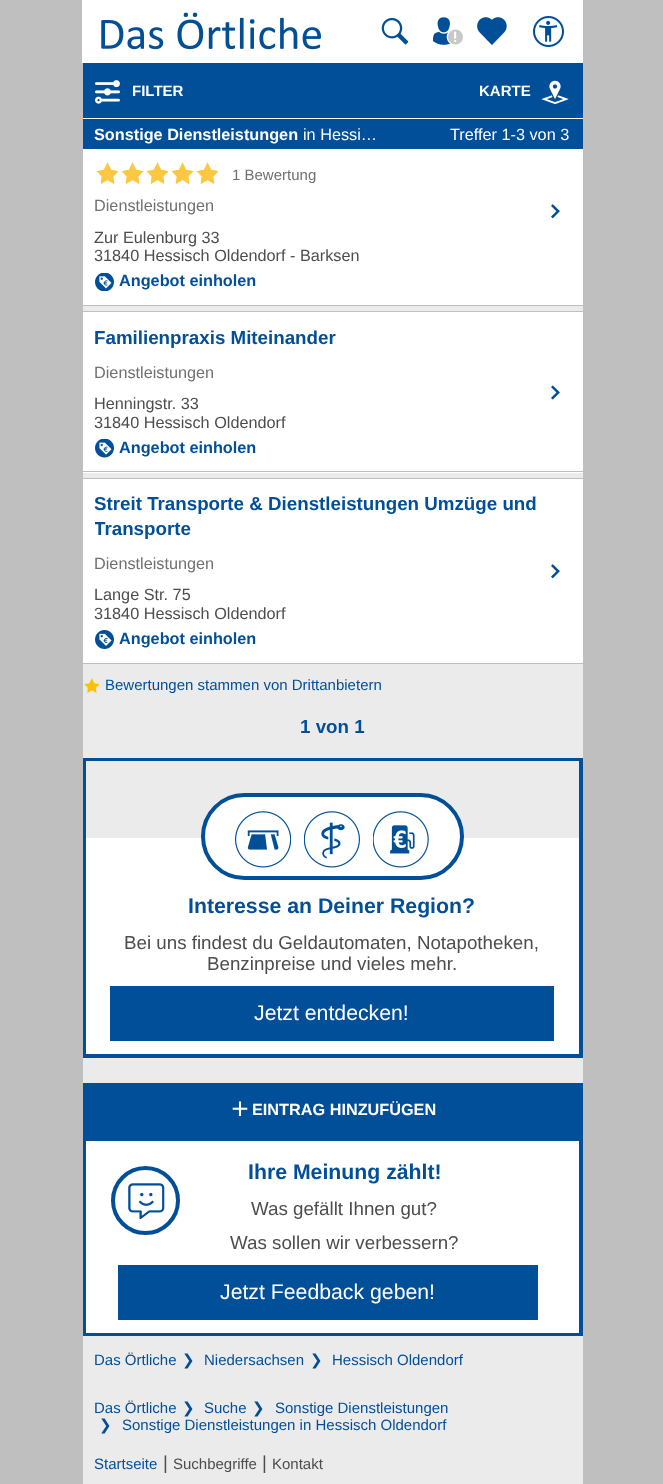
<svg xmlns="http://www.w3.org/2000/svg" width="663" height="1484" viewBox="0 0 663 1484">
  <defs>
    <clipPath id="clip1"><rect x="95" y="491" width="475" height="50"/></clipPath>
  </defs>
  <rect width="100%" height="100%" fill="#bfbfbf"/>
  <rect x="82" y="0" width="501" height="63" fill="#ffffff"/>
  <image x="101" y="12" width="220" height="38" href="img1.png"/>
  <image x="381" y="17" width="28" height="28" href="img2.png"/>
  <image x="433" y="17" width="30" height="28" href="img3.png"/>
  <image x="477" y="17" width="30" height="28" href="img4.png"/>
  <image x="533" y="16" width="31" height="31" href="img5.png"/>
  <rect x="83" y="758" width="500" height="578" fill="#024f99"/>
  <rect x="83" y="63" width="500" height="55" fill="#024f99"/>
  <image x="95" y="80" width="25" height="24" href="img6.png"/>
  <text x="132" y="96" font-family="Liberation Sans" font-size="15" font-weight="bold" fill="#ffffff">FILTER</text>
  <text x="479" y="96" font-family="Liberation Sans" font-size="15" font-weight="bold" fill="#ffffff">KARTE</text>
  <image x="541" y="80" width="28" height="25" href="img7.png"/>
  <rect x="83" y="119" width="500" height="30" fill="#024f99"/>
  <rect x="83" y="118" width="500" height="1" fill="#ffffff"/>
  <text x="94" y="140" font-family="Liberation Sans" font-size="16.25" font-weight="bold" fill="#ffffff">Sonstige Dienstleistungen</text>
  <text x="303" y="140" font-family="Liberation Sans" font-size="16.25" fill="#ffffff">in Hessi…</text>
  <text x="450" y="140" font-family="Liberation Sans" font-size="16.25" fill="#ffffff">Treffer 1-3 von 3</text>
  <rect x="83" y="306" width="500" height="172" fill="#ebebeb"/>
  <rect x="83" y="149" width="500" height="156" fill="#ffffff"/>
  <image x="551" y="204" width="9" height="15" href="img8.png"/>
  <image x="96" y="162" width="23" height="22" href="img9.png"/>
  <image x="121" y="162" width="23" height="22" href="img9.png"/>
  <image x="146" y="162" width="23" height="22" href="img9.png"/>
  <image x="171" y="162" width="23" height="22" href="img9.png"/>
  <image x="196" y="162" width="23" height="22" href="img9.png"/>
  <text x="232" y="180" font-family="Liberation Sans" font-size="15" fill="#707070">1 Bewertung</text>
  <text x="94" y="211" font-family="Liberation Sans" font-size="16.25" fill="#707070">Dienstleistungen</text>
  <text x="94" y="243" font-family="Liberation Sans" font-size="16.25" fill="#4d4d4d">Zur Eulenburg 33</text>
  <text x="94" y="261" font-family="Liberation Sans" font-size="16.25" fill="#4d4d4d">31840 Hessisch Oldendorf - Barksen</text>
  <image x="95" y="273" width="19" height="18" href="img10.png"/>
  <text x="119" y="286" font-family="Liberation Sans" font-size="16.25" font-weight="bold" fill="#024f99">Angebot einholen</text>
  <rect x="83" y="312" width="500" height="161" fill="#ffffff"/>
  <image x="551" y="385" width="9" height="15" href="img11.png"/>
  <rect x="83" y="311" width="500" height="1" fill="#bfbfbf"/>
  <rect x="83" y="471" width="500" height="1" fill="#bfbfbf"/>
  <text x="94" y="344" font-family="Liberation Sans" font-size="18.75" font-weight="bold" fill="#024f99">Familienpraxis Miteinander</text>
  <text x="94" y="378" font-family="Liberation Sans" font-size="16.25" fill="#707070">Dienstleistungen</text>
  <text x="94" y="409" font-family="Liberation Sans" font-size="16.25" fill="#4d4d4d">Henningstr. 33</text>
  <text x="94" y="428" font-family="Liberation Sans" font-size="16.25" fill="#4d4d4d">31840 Hessisch Oldendorf</text>
  <image x="95" y="439" width="19" height="19" href="img12.png"/>
  <text x="119" y="453" font-family="Liberation Sans" font-size="16.25" font-weight="bold" fill="#024f99">Angebot einholen</text>
  <rect x="83" y="479" width="500" height="184" fill="#ffffff"/>
  <image x="551" y="564" width="9" height="15" href="img8.png"/>
  <text x="94" y="510" font-family="Liberation Sans" font-size="18.75" font-weight="bold" fill="#024f99">Streit Transporte &amp; Dienstleistungen Umzüge und</text>
  <g clip-path="url(#clip1)">
    <text x="94" y="535" font-family="Liberation Sans" font-size="18.75" font-weight="bold" fill="#024f99">Transporte</text>
  </g>
  <text x="94" y="569" font-family="Liberation Sans" font-size="16.25" fill="#707070">Dienstleistungen</text>
  <text x="94" y="600" font-family="Liberation Sans" font-size="16.25" fill="#4d4d4d">Lange Str. 75</text>
  <text x="94" y="619" font-family="Liberation Sans" font-size="16.25" fill="#4d4d4d">31840 Hessisch Oldendorf</text>
  <image x="95" y="630" width="19" height="19" href="img13.png"/>
  <text x="119" y="644" font-family="Liberation Sans" font-size="16.25" font-weight="bold" fill="#024f99">Angebot einholen</text>
  <rect x="83" y="664" width="500" height="94" fill="#ebebeb"/>
  <image x="84" y="678" width="16" height="15" href="img14.png"/>
  <text x="105" y="690" font-family="Liberation Sans" font-size="15" fill="#024f99">Bewertungen stammen von Drittanbietern</text>
  <text x="300" y="733" font-family="Liberation Sans" font-size="18.75" font-weight="bold" fill="#024f99">1 von 1</text>
  <rect x="86" y="761" width="493" height="77" fill="#ebebeb"/>
  <rect x="86" y="838" width="493" height="216" fill="#ffffff"/>
  <rect x="203" y="795" width="259" height="83" rx="41.5" fill="#ffffff" stroke="#024f99" stroke-width="4"/>
  <image x="235" y="811" width="56" height="57" href="img15.png"/>
  <image x="304" y="811" width="56" height="57" href="img16.png"/>
  <image x="373" y="811" width="56" height="57" href="img17.png"/>
  <text x="188" y="913" font-family="Liberation Sans" font-size="21.25" font-weight="bold" fill="#024f99">Interesse an Deiner Region?</text>
  <text x="124" y="949" font-family="Liberation Sans" font-size="18.75" fill="#4d4d4d">Bei uns findest du Geldautomaten, Notapotheken,</text>
  <text x="207" y="970" font-family="Liberation Sans" font-size="18.75" fill="#4d4d4d">Benzinpreise und vieles mehr.</text>
  <rect x="110" y="986" width="444" height="55" fill="#024f99"/>
  <text x="254" y="1020" font-family="Liberation Sans" font-size="21.25" fill="#ffffff">Jetzt entdecken!</text>
  <rect x="83" y="1058" width="500" height="25" fill="#ebebeb"/>
  <image x="232" y="1101" width="16" height="16" href="img18.png"/>
  <text x="252" y="1115" font-family="Liberation Sans" font-size="16.25" font-weight="bold" fill="#ffffff">EINTRAG HINZUFÜGEN</text>
  <rect x="86" y="1141" width="493" height="192" fill="#ffffff"/>
  <circle cx="145.5" cy="1200.5" r="32.5" fill="none" stroke="#024f99" stroke-width="4"/>
  <image x="128" y="1183" width="37" height="37" href="img19.png"/>
  <text x="248" y="1179" font-family="Liberation Sans" font-size="21.25" font-weight="bold" fill="#024f99">Ihre Meinung zählt!</text>
  <text x="251" y="1215" font-family="Liberation Sans" font-size="18.75" fill="#4d4d4d">Was gefällt Ihnen gut?</text>
  <text x="230" y="1249" font-family="Liberation Sans" font-size="18.75" fill="#4d4d4d">Was sollen wir verbessern?</text>
  <rect x="118" y="1265" width="420" height="55" fill="#024f99"/>
  <text x="220" y="1299" font-family="Liberation Sans" font-size="21.25" fill="#ffffff">Jetzt Feedback geben!</text>
  <rect x="83" y="1336" width="500" height="148" fill="#ebebeb"/>
  <text x="94" y="1365" font-family="Liberation Sans" font-size="15" fill="#024f99">Das Örtliche</text>
  <text x="182" y="1365" font-family="DejaVu Sans" font-size="15" fill="#024f99">❯</text>
  <text x="204" y="1365" font-family="Liberation Sans" font-size="15" fill="#024f99">Niedersachsen</text>
  <text x="310" y="1365" font-family="DejaVu Sans" font-size="15" fill="#024f99">❯</text>
  <text x="332" y="1365" font-family="Liberation Sans" font-size="15" fill="#024f99">Hessisch Oldendorf</text>
  <text x="94" y="1413" font-family="Liberation Sans" font-size="15" fill="#024f99">Das Örtliche</text>
  <text x="182" y="1413" font-family="DejaVu Sans" font-size="15" fill="#024f99">❯</text>
  <text x="204" y="1413" font-family="Liberation Sans" font-size="15" fill="#024f99">Suche</text>
  <text x="252" y="1413" font-family="DejaVu Sans" font-size="15" fill="#024f99">❯</text>
  <text x="275" y="1413" font-family="Liberation Sans" font-size="15" fill="#024f99">Sonstige Dienstleistungen</text>
  <text x="99" y="1430" font-family="DejaVu Sans" font-size="15" fill="#024f99">❯</text>
  <text x="122" y="1430" font-family="Liberation Sans" font-size="15" fill="#024f99">Sonstige Dienstleistungen in Hessisch Oldendorf</text>
  <text x="94" y="1469" font-family="Liberation Sans" font-size="15" fill="#024f99">Startseite</text>
  <text x="163" y="1469" font-family="Liberation Sans" font-size="18.75" fill="#4d4d4d">|</text>
  <text x="173" y="1469" font-family="Liberation Sans" font-size="15" fill="#4d4d4d">Suchbegriffe</text>
  <text x="262" y="1469" font-family="Liberation Sans" font-size="18.75" fill="#4d4d4d">|</text>
  <text x="272" y="1469" font-family="Liberation Sans" font-size="15" fill="#4d4d4d">Kontakt</text>
</svg>
